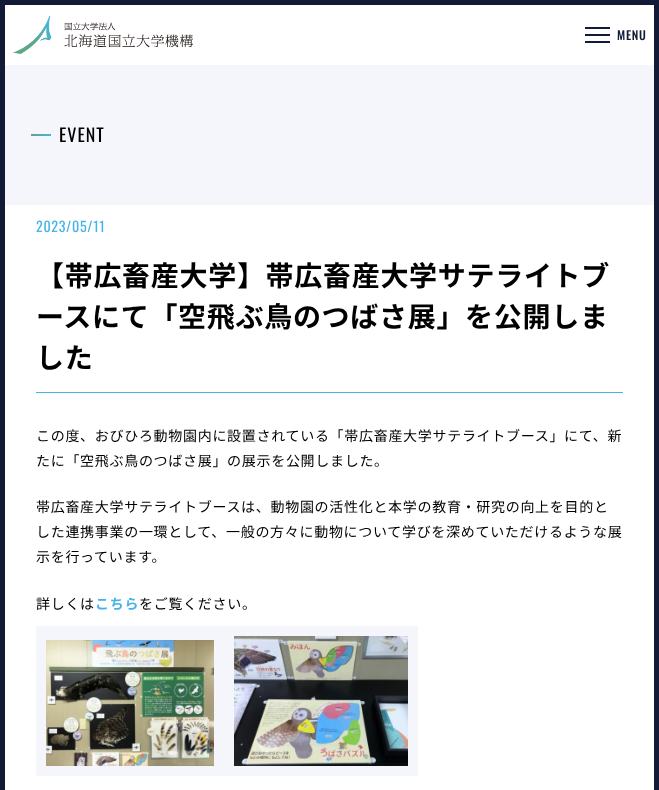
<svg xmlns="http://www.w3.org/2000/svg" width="659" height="790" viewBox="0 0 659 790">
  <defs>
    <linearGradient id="g1" gradientUnits="userSpaceOnUse" x1="31" y1="135" x2="51" y2="135"><stop offset="0" stop-color="#5ea785"/><stop offset="1" stop-color="#46b2e7"/></linearGradient>
  </defs>
  <rect width="100%" height="100%" fill="#121a38"/>
  <rect x="5" y="5" width="649" height="785" fill="#ffffff"/>
  <image x="13" y="16" width="180" height="38" href="img1.png"/>
  <rect x="585" y="27" width="25" height="2" fill="#121a38"/>
  <rect x="585" y="34" width="25" height="2" fill="#121a38"/>
  <rect x="585" y="41" width="25" height="2" fill="#121a38"/>
  <text x="617" y="40" font-family="Oswald" font-size="12" font-weight="500" letter-spacing="0.7" fill="#121a38">MENU</text>
  <rect x="5" y="65" width="649" height="140" fill="#f4f6fb"/>
  <rect x="31" y="134" width="20" height="2" fill="url(#g1)"/>
  <text x="59" y="142" font-family="Oswald" font-size="18" letter-spacing="1" fill="#000000">EVENT</text>
  <text x="36" y="232" font-family="Oswald" font-size="14" letter-spacing="0.7" fill="#46b2e7">2023/05/11</text>
  <rect x="36" y="392" width="587" height="1" fill="#46b2e7"/>
  <text x="36" y="286" font-family="Noto Sans JP" font-size="28" font-weight="bold" letter-spacing="0.7" fill="#000000">【帯広畜産大学】帯広畜産大学サテライトブ</text>
  <text x="36" y="327" font-family="Noto Sans JP" font-size="28" font-weight="bold" letter-spacing="0.7" fill="#000000">ースにて「空飛ぶ鳥のつばさ展」を公開しま</text>
  <text x="36" y="368" font-family="Noto Sans JP" font-size="28" font-weight="bold" letter-spacing="0.7" fill="#000000">した</text>
  <text x="36" y="441" font-family="Noto Sans JP" font-size="14" letter-spacing="0.7" fill="#000000">この度、おびひろ動物園内に設置されている「帯広畜産大学サテライトブース」にて、新</text>
  <text x="36" y="466" font-family="Noto Sans JP" font-size="14" letter-spacing="0.7" fill="#000000">たに「空飛ぶ鳥のつばさ展」の展示を公開しました。</text>
  <text x="36" y="512" font-family="Noto Sans JP" font-size="14" letter-spacing="0.7" fill="#000000">帯広畜産大学サテライトブースは、動物園の活性化と本学の教育・研究の向上を目的と</text>
  <text x="36" y="537" font-family="Noto Sans JP" font-size="14" letter-spacing="0.7" fill="#000000">した連携事業の一環として、一般の方々に動物について学びを深めていただけるような展</text>
  <text x="36" y="562" font-family="Noto Sans JP" font-size="14" letter-spacing="0.7" fill="#000000">示を行っています。</text>
  <text x="36" y="609" font-family="Noto Sans JP" font-size="14" letter-spacing="0.7" fill="#000000">詳しくは</text>
  <text x="95" y="609" font-family="Noto Sans JP" font-size="14" font-weight="bold" letter-spacing="0.7" fill="#46b2e7">こちら</text>
  <text x="139" y="609" font-family="Noto Sans JP" font-size="14" letter-spacing="0.7" fill="#000000">をご覧ください。</text>
  <rect x="36" y="626" width="382" height="150" fill="#f4f6fb"/>
  <image x="46" y="640" width="168" height="126" href="img2.png"/>
  <image x="234" y="636" width="174" height="130" href="img3.png"/>
</svg>
